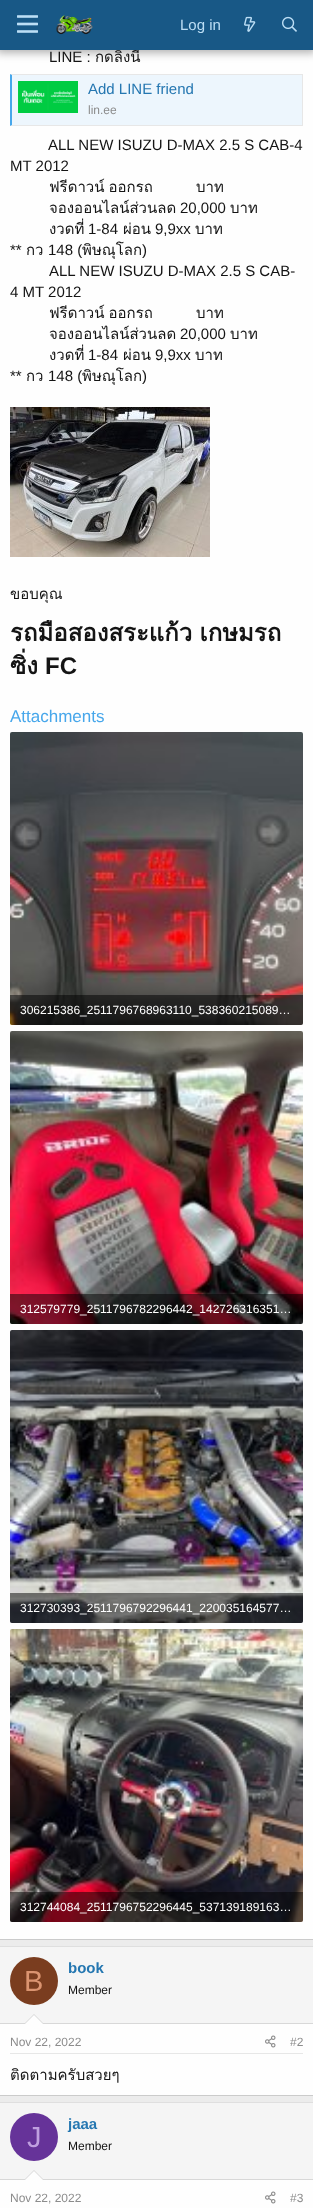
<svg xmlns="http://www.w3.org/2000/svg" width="313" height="2208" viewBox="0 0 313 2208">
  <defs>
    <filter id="blur1" x="-50%" y="-200%" width="200%" height="500%"><feGaussianBlur stdDeviation="4"/></filter>
  </defs>
  <rect width="100%" height="100%" fill="#ececec"/>
  <rect x="0" y="50" width="313" height="1889" fill="#fefefe"/>
  <rect x="-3" y="-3" width="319" height="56" fill="#000000" fill-opacity="0.3" filter="url(#blur1)"/>
  <text x="95" y="62" font-family="Loma" font-size="15" fill="#141414">กดลิ้งนี้</text>
  <rect x="0" y="0" width="313" height="50" fill="#185886"/>
  <image x="17" y="15" width="21" height="18" href="img1.png"/>
  <image x="56" y="15" width="37" height="20" href="img2.png"/>
  <text x="180" y="30" font-family="Liberation Sans" font-size="15" fill="#bcdef5">Log in</text>
  <image x="244" y="16" width="12" height="16" href="img3.png"/>
  <image x="282" y="16" width="15" height="16" href="img4.png"/>
  <rect x="0" y="1939" width="313" height="1" fill="#cbcbcb"/>
  <text x="49" y="62" font-family="Liberation Sans" font-size="15" fill="#141414">LINE :</text>
  <rect x="12" y="75" width="290" height="50" fill="#edf6fd"/>
  <path d="M10 74H303L302 75H12Z" fill="#e7e7e7"/>
  <rect x="302" y="74" width="1" height="52" fill="#e7e7e7"/>
  <path d="M303 126H10L12 125H302Z" fill="#e7e7e7"/>
  <path d="M10 126V74L12 75V125Z" fill="#47a7eb"/>
  <image x="18" y="81" width="60" height="32" href="img5.png"/>
  <text x="88" y="94" font-family="Liberation Sans" font-size="15" fill="#2577b1">Add LINE friend</text>
  <text x="88" y="114" font-family="Liberation Sans" font-size="12" fill="#8c8c8c">lin.ee</text>
  <text x="48" y="150" font-family="Liberation Sans" font-size="15" fill="#141414">ALL NEW ISUZU D-MAX 2.5 S CAB-4</text>
  <text x="10" y="171" font-family="Liberation Sans" font-size="15" fill="#141414">MT 2012</text>
  <text x="49" y="192" word-spacing="-1" font-family="Loma" font-size="15" fill="#141414">ฟรีดาวน์ ออกรถ</text>
  <text x="196" y="192" font-family="Loma" font-size="15" fill="#141414">บาท</text>
  <text x="49" y="213" font-family="Loma" font-size="15" fill="#141414">จองออนไลน์ส่วนลด</text>
  <text x="180" y="213" font-family="Liberation Sans" font-size="15" fill="#141414">20,000</text>
  <text x="230" y="213" font-family="Loma" font-size="15" fill="#141414">บาท</text>
  <text x="49" y="234" font-family="Loma" font-size="15" fill="#141414">งวดที่</text>
  <text x="88" y="234" font-family="Liberation Sans" font-size="15" fill="#141414">1-84</text>
  <text x="123" y="234" font-family="Loma" font-size="15" fill="#141414">ผ่อน</text>
  <text x="155" y="234" font-family="Liberation Sans" font-size="15" fill="#141414">9,9xx</text>
  <text x="195" y="234" font-family="Loma" font-size="15" fill="#141414">บาท</text>
  <text x="10" y="255" font-family="Liberation Sans" font-size="15" fill="#141414">**</text>
  <text x="26" y="255" font-family="Loma" font-size="15" fill="#141414">กว</text>
  <text x="48" y="255" font-family="Liberation Sans" font-size="15" fill="#141414">148 (</text>
  <text x="82" y="255" font-family="Loma" font-size="15" fill="#141414">พิษณุโลก</text>
  <text x="142" y="255" font-family="Liberation Sans" font-size="15" fill="#141414">)</text>
  <text x="49" y="276" font-family="Liberation Sans" font-size="15" fill="#141414">ALL NEW ISUZU D-MAX 2.5 S CAB-</text>
  <text x="10" y="297" font-family="Liberation Sans" font-size="15" fill="#141414">4 MT 2012</text>
  <text x="49" y="318" word-spacing="-1" font-family="Loma" font-size="15" fill="#141414">ฟรีดาวน์ ออกรถ</text>
  <text x="196" y="318" font-family="Loma" font-size="15" fill="#141414">บาท</text>
  <text x="49" y="339" font-family="Loma" font-size="15" fill="#141414">จองออนไลน์ส่วนลด</text>
  <text x="180" y="339" font-family="Liberation Sans" font-size="15" fill="#141414">20,000</text>
  <text x="230" y="339" font-family="Loma" font-size="15" fill="#141414">บาท</text>
  <text x="49" y="360" font-family="Loma" font-size="15" fill="#141414">งวดที่</text>
  <text x="88" y="360" font-family="Liberation Sans" font-size="15" fill="#141414">1-84</text>
  <text x="123" y="360" font-family="Loma" font-size="15" fill="#141414">ผ่อน</text>
  <text x="155" y="360" font-family="Liberation Sans" font-size="15" fill="#141414">9,9xx</text>
  <text x="195" y="360" font-family="Loma" font-size="15" fill="#141414">บาท</text>
  <text x="10" y="381" font-family="Liberation Sans" font-size="15" fill="#141414">**</text>
  <text x="26" y="381" font-family="Loma" font-size="15" fill="#141414">กว</text>
  <text x="48" y="381" font-family="Liberation Sans" font-size="15" fill="#141414">148 (</text>
  <text x="82" y="381" font-family="Loma" font-size="15" fill="#141414">พิษณุโลก</text>
  <text x="142" y="381" font-family="Liberation Sans" font-size="15" fill="#141414">)</text>
  <image x="10" y="407" width="200" height="150" href="img6.png"/>
  <text x="10" y="599" font-family="Loma" font-size="15" fill="#141414">ขอบคุณ</text>
  <text x="10" y="641" word-spacing="-1" font-family="Loma" font-size="24" font-weight="bold" fill="#141414">รถมือสองสระแก้ว เกษมรถ</text>
  <text x="10" y="674" font-family="Loma" font-size="24" font-weight="bold" fill="#141414">ซิ่ง</text>
  <text x="45" y="674" font-family="Liberation Sans" font-size="24" font-weight="bold" fill="#141414">FC</text>
  <text x="10" y="722" font-family="Liberation Sans" font-size="17" fill="#47a7eb">Attachments</text>
  <image x="10" y="732" width="293" height="293" href="img7.png"/>
  <path d="M10 995H303V1023C303 1024 302 1025 301 1025H12C11 1025 10 1024 10 1023Z" fill="#000000" fill-opacity="0.5"/>
  <text x="20" y="1014" font-family="Liberation Sans" font-size="12" fill="#ffffff">306215386_2511796768963110_538360215089…</text>
  <image x="10" y="1031" width="293" height="293" href="img8.png"/>
  <path d="M10 1294H303V1322C303 1323 302 1324 301 1324H12C11 1324 10 1323 10 1322Z" fill="#000000" fill-opacity="0.5"/>
  <text x="20" y="1313" font-family="Liberation Sans" font-size="12" fill="#ffffff">312579779_2511796782296442_142726316351…</text>
  <image x="10" y="1330" width="293" height="293" href="img9.png"/>
  <path d="M10 1593H303V1621C303 1622 302 1623 301 1623H12C11 1623 10 1622 10 1621Z" fill="#000000" fill-opacity="0.5"/>
  <text x="20" y="1612" font-family="Liberation Sans" font-size="12" fill="#ffffff">312730393_2511796792296441_220035164577…</text>
  <image x="10" y="1629" width="293" height="293" href="img10.png"/>
  <path d="M10 1892H303V1920C303 1921 302 1922 301 1922H12C11 1922 10 1921 10 1920Z" fill="#000000" fill-opacity="0.5"/>
  <text x="20" y="1911" font-family="Liberation Sans" font-size="12" fill="#ffffff">312744084_2511796752296445_537139189163…</text>
  <rect x="0" y="2024" width="313" height="71" fill="#fefefe"/>
  <rect x="0" y="1946" width="313" height="1" fill="#dfdfdf"/>
  <rect x="0" y="2095" width="313" height="1" fill="#cbcbcb"/>
  <rect x="0" y="1947" width="313" height="76" fill="#f5f5f5"/>
  <rect x="0" y="2023" width="313" height="1" fill="#d8d8d8"/>
  <circle cx="34" cy="1981" r="24" fill="#7a3d1f"/>
  <text x="24" y="1991" font-family="Liberation Sans" font-size="29" fill="#db9470">B</text>
  <text x="68" y="1973" font-family="Liberation Sans" font-size="15" font-weight="bold" fill="#2577b1">book</text>
  <text x="68" y="1994" font-family="Liberation Sans" font-size="12" fill="#141414">Member</text>
  <path d="M44 2024H24L34 2014Z" fill="#d8d8d8"/>
  <path d="M43 2024H25L34 2015Z" fill="#fefefe"/>
  <rect x="10" y="2053" width="293" height="1" fill="#e7e7e7"/>
  <text x="10" y="2046" font-family="Liberation Sans" font-size="12" fill="#8c8c8c">Nov 22, 2022</text>
  <image x="265" y="2035" width="11" height="13" href="img11.png"/>
  <text x="290" y="2046" font-family="Liberation Sans" font-size="12" fill="#8c8c8c">#2</text>
  <text x="10" y="2080" font-family="Loma" font-size="15" fill="#141414">ติดตามครับสวยๆ</text>
  <rect x="0" y="2180" width="313" height="28" fill="#fefefe"/>
  <rect x="0" y="2102" width="313" height="1" fill="#dfdfdf"/>
  <rect x="0" y="2103" width="313" height="76" fill="#f5f5f5"/>
  <rect x="0" y="2179" width="313" height="1" fill="#d8d8d8"/>
  <circle cx="34" cy="2137" r="24" fill="#663399"/>
  <text x="27" y="2147" font-family="Liberation Sans" font-size="29" fill="#bf9fdf">J</text>
  <text x="68" y="2129" font-family="Liberation Sans" font-size="15" font-weight="bold" fill="#2577b1">jaaa</text>
  <text x="68" y="2150" font-family="Liberation Sans" font-size="12" fill="#141414">Member</text>
  <path d="M44 2180H24L34 2170Z" fill="#d8d8d8"/>
  <path d="M43 2180H25L34 2171Z" fill="#fefefe"/>
  <text x="10" y="2202" font-family="Liberation Sans" font-size="12" fill="#8c8c8c">Nov 22, 2022</text>
  <image x="265" y="2191" width="11" height="13" href="img11.png"/>
  <text x="290" y="2202" font-family="Liberation Sans" font-size="12" fill="#8c8c8c">#3</text>
</svg>
